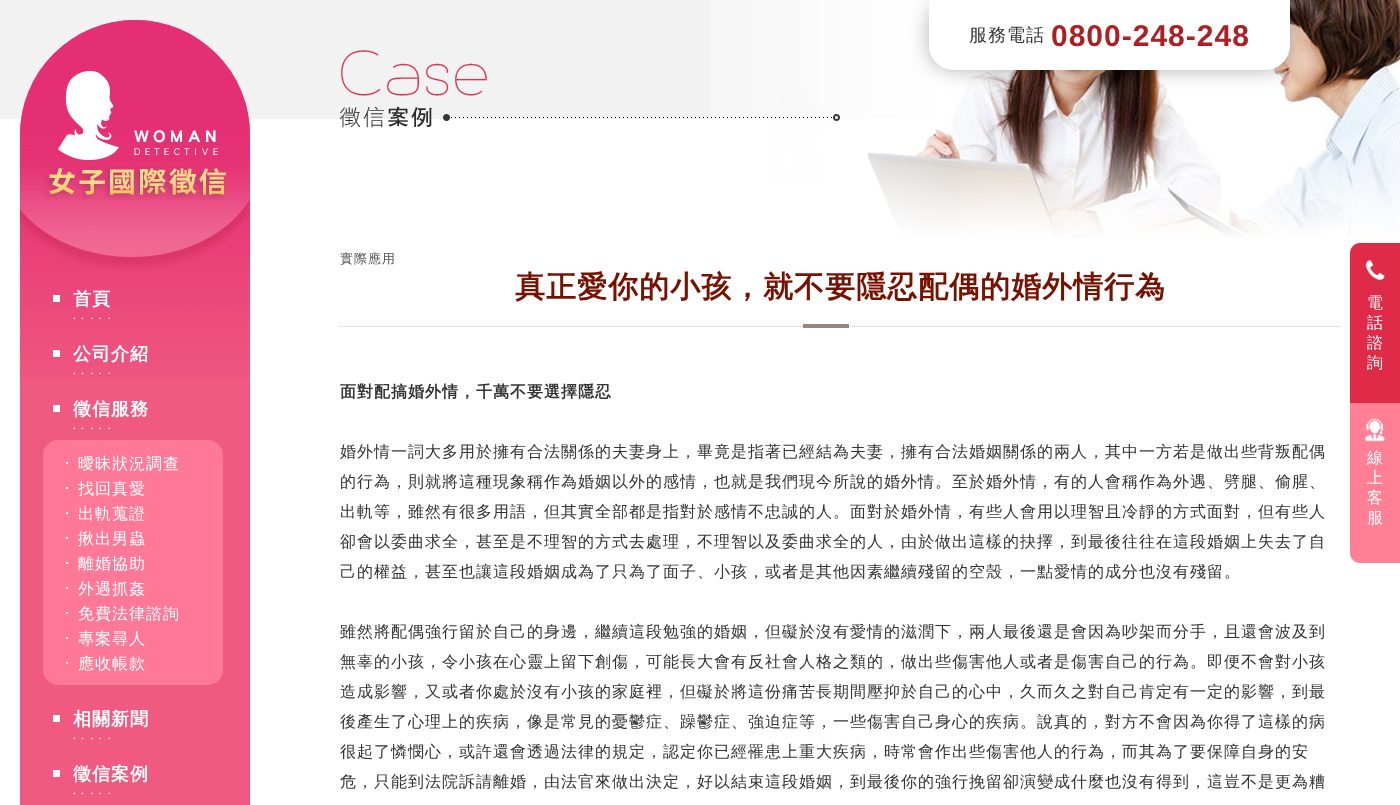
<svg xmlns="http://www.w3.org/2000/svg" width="1400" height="805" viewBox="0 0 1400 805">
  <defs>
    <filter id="blur1" x="-50%" y="-200%" width="200%" height="500%"><feGaussianBlur stdDeviation="10"/></filter>
  </defs>
  <rect width="100%" height="100%" fill="#ffffff"/>
  <rect x="0" y="0" width="709" height="119" fill="#f2f2f2"/>
  <rect x="20" y="20" width="230" height="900" rx="115" fill="#f05a81"/>
  <image x="20" y="20" width="230" height="360" href="img1.png"/>
  <image x="44" y="71" width="182" height="129" href="img2.png"/>
  <rect x="53" y="295" width="7" height="7" fill="#ffffff"/>
  <image x="73" y="317" width="37" height="3" href="img3.png"/>
  <text x="73" y="305" font-family="WenQuanYi Zen Hei" font-size="18" font-weight="bold" letter-spacing="1" fill="#ffffff">首頁</text>
  <rect x="53" y="350" width="7" height="7" fill="#ffffff"/>
  <image x="73" y="372" width="37" height="3" href="img4.png"/>
  <text x="73" y="360" font-family="WenQuanYi Zen Hei" font-size="18" font-weight="bold" letter-spacing="1" fill="#ffffff">公司介紹</text>
  <rect x="53" y="405" width="7" height="7" fill="#ffffff"/>
  <image x="73" y="427" width="37" height="3" href="img5.png"/>
  <text x="73" y="415" font-family="WenQuanYi Zen Hei" font-size="18" font-weight="bold" letter-spacing="1" fill="#ffffff">徵信服務</text>
  <rect x="43" y="440" width="180" height="245" rx="15" fill="#ff7898"/>
  <rect x="66" y="462" width="2" height="2" fill="#ffffff"/>
  <text x="78" y="469" font-family="WenQuanYi Zen Hei" font-size="16" font-weight="500" letter-spacing="1" fill="#ffffff">曖昧狀況調查</text>
  <rect x="66" y="487" width="2" height="2" fill="#ffffff"/>
  <text x="78" y="494" font-family="WenQuanYi Zen Hei" font-size="16" font-weight="500" letter-spacing="1" fill="#ffffff">找回真愛</text>
  <rect x="66" y="512" width="2" height="2" fill="#ffffff"/>
  <text x="78" y="519" font-family="WenQuanYi Zen Hei" font-size="16" font-weight="500" letter-spacing="1" fill="#ffffff">出軌蒐證</text>
  <rect x="66" y="537" width="2" height="2" fill="#ffffff"/>
  <text x="78" y="544" font-family="WenQuanYi Zen Hei" font-size="16" font-weight="500" letter-spacing="1" fill="#ffffff">揪出男蟲</text>
  <rect x="66" y="562" width="2" height="2" fill="#ffffff"/>
  <text x="78" y="569" font-family="WenQuanYi Zen Hei" font-size="16" font-weight="500" letter-spacing="1" fill="#ffffff">離婚協助</text>
  <rect x="66" y="587" width="2" height="2" fill="#ffffff"/>
  <text x="78" y="594" font-family="WenQuanYi Zen Hei" font-size="16" font-weight="500" letter-spacing="1" fill="#ffffff">外遇抓姦</text>
  <rect x="66" y="612" width="2" height="2" fill="#ffffff"/>
  <text x="78" y="619" font-family="WenQuanYi Zen Hei" font-size="16" font-weight="500" letter-spacing="1" fill="#ffffff">免費法律諮詢</text>
  <rect x="66" y="637" width="2" height="2" fill="#ffffff"/>
  <text x="78" y="644" font-family="WenQuanYi Zen Hei" font-size="16" font-weight="500" letter-spacing="1" fill="#ffffff">專案尋人</text>
  <rect x="66" y="662" width="2" height="2" fill="#ffffff"/>
  <text x="78" y="669" font-family="WenQuanYi Zen Hei" font-size="16" font-weight="500" letter-spacing="1" fill="#ffffff">應收帳款</text>
  <rect x="53" y="715" width="7" height="7" fill="#ffffff"/>
  <image x="73" y="737" width="37" height="3" href="img5.png"/>
  <text x="73" y="725" font-family="WenQuanYi Zen Hei" font-size="18" font-weight="bold" letter-spacing="1" fill="#ffffff">相關新聞</text>
  <rect x="53" y="770" width="7" height="7" fill="#ffffff"/>
  <image x="73" y="792" width="37" height="3" href="img5.png"/>
  <text x="73" y="780" font-family="WenQuanYi Zen Hei" font-size="18" font-weight="bold" letter-spacing="1" fill="#ffffff">徵信案例</text>
  <image x="709" y="0" width="691" height="238" href="img6.png"/>
  <rect x="929" y="0" width="361" height="70" rx="25" fill="#000000" fill-opacity="0.3" filter="url(#blur1)"/>
  <path d="M929 0H1290V45C1290 59 1279 70 1265 70H954C940 70 929 59 929 45Z" fill="#ffffff"/>
  <text x="969" y="41" font-family="WenQuanYi Zen Hei" font-size="18" font-weight="500" letter-spacing="1" fill="#333333">服務電話</text>
  <text x="1051" y="46" font-family="Liberation Sans" font-size="30" font-weight="bold" letter-spacing="1" fill="#ac1f22">0800-248-248</text>
  <image x="340" y="50" width="500" height="78" href="img7.png"/>
  <text x="340" y="263" font-family="WenQuanYi Zen Hei" font-size="13" font-weight="500" letter-spacing="1" fill="#555555">實際應用</text>
  <path d="M340 326.5H1340" fill="none" stroke="#cccccc" stroke-dasharray="1 1"/>
  <text x="515" y="297" font-family="WenQuanYi Zen Hei" font-size="30" font-weight="bold" letter-spacing="1" fill="#771201">真正愛你的小孩，就不要隱忍配偶的婚外情行為</text>
  <rect x="803" y="324" width="46" height="4" fill="#9a8679"/>
  <text x="340" y="397" font-family="WenQuanYi Zen Hei" font-size="16" font-weight="bold" letter-spacing="1" fill="#333333">面對配搞婚外情，千萬不要選擇隱忍</text>
  <text x="340" y="457" font-family="WenQuanYi Zen Hei" font-size="16" font-weight="500" letter-spacing="1" fill="#333333">婚外情一詞大多用於擁有合法關係的夫妻身上，畢竟是指著已經結為夫妻，擁有合法婚姻關係的兩人，其中一方若是做出些背叛配偶</text>
  <text x="340" y="487" font-family="WenQuanYi Zen Hei" font-size="16" font-weight="500" letter-spacing="1" fill="#333333">的行為，則就將這種現象稱作為婚姻以外的感情，也就是我們現今所說的婚外情。至於婚外情，有的人會稱作為外遇、劈腿、偷腥、</text>
  <text x="340" y="517" font-family="WenQuanYi Zen Hei" font-size="16" font-weight="500" letter-spacing="1" fill="#333333">出軌等，雖然有很多用語，但其實全部都是指對於感情不忠誠的人。面對於婚外情，有些人會用以理智且冷靜的方式面對，但有些人</text>
  <text x="340" y="547" font-family="WenQuanYi Zen Hei" font-size="16" font-weight="500" letter-spacing="1" fill="#333333">卻會以委曲求全，甚至是不理智的方式去處理，不理智以及委曲求全的人，由於做出這樣的抉擇，到最後往往在這段婚姻上失去了自</text>
  <text x="340" y="577" font-family="WenQuanYi Zen Hei" font-size="16" font-weight="500" letter-spacing="1" fill="#333333">己的權益，甚至也讓這段婚姻成為了只為了面子、小孩，或者是其他因素繼續殘留的空殼，一點愛情的成分也沒有殘留。</text>
  <text x="340" y="637" font-family="WenQuanYi Zen Hei" font-size="16" font-weight="500" letter-spacing="1" fill="#333333">雖然將配偶強行留於自己的身邊，繼續這段勉強的婚姻，但礙於沒有愛情的滋潤下，兩人最後還是會因為吵架而分手，且還會波及到</text>
  <text x="340" y="667" font-family="WenQuanYi Zen Hei" font-size="16" font-weight="500" letter-spacing="1" fill="#333333">無辜的小孩，令小孩在心靈上留下創傷，可能長大會有反社會人格之類的，做出些傷害他人或者是傷害自己的行為。即便不會對小孩</text>
  <text x="340" y="697" font-family="WenQuanYi Zen Hei" font-size="16" font-weight="500" letter-spacing="1" fill="#333333">造成影響，又或者你處於沒有小孩的家庭裡，但礙於將這份痛苦長期間壓抑於自己的心中，久而久之對自己肯定有一定的影響，到最</text>
  <text x="340" y="727" font-family="WenQuanYi Zen Hei" font-size="16" font-weight="500" letter-spacing="1" fill="#333333">後產生了心理上的疾病，像是常見的憂鬱症、躁鬱症、強迫症等，一些傷害自己身心的疾病。說真的，對方不會因為你得了這樣的病</text>
  <text x="340" y="757" font-family="WenQuanYi Zen Hei" font-size="16" font-weight="500" letter-spacing="1" fill="#333333">很起了憐憫心，或許還會透過法律的規定，認定你已經罹患上重大疾病，時常會作出些傷害他人的行為，而其為了要保障自身的安</text>
  <text x="340" y="787" font-family="WenQuanYi Zen Hei" font-size="16" font-weight="500" letter-spacing="1" fill="#333333">危，只能到法院訴請離婚，由法官來做出決定，好以結束這段婚姻，到最後你的強行挽留卻演變成什麼也沒有得到，這豈不是更為糟</text>
  <path d="M1360 243H1400V403H1350V253C1350 247.5 1354.5 243 1360 243Z" fill="#df2a48"/>
  <image x="1365" y="260" width="20" height="20" href="img8.png"/>
  <text x="1367" y="308" font-family="WenQuanYi Zen Hei" font-size="16" font-weight="500" letter-spacing="1" fill="#ffffff">電</text>
  <text x="1367" y="328" font-family="WenQuanYi Zen Hei" font-size="16" font-weight="500" letter-spacing="1" fill="#ffffff">話</text>
  <text x="1367" y="348" font-family="WenQuanYi Zen Hei" font-size="16" font-weight="500" letter-spacing="1" fill="#ffffff">諮</text>
  <text x="1367" y="368" font-family="WenQuanYi Zen Hei" font-size="16" font-weight="500" letter-spacing="1" fill="#ffffff">詢</text>
  <path d="M1350 403H1400V563H1360C1354.5 563 1350 558.5 1350 553Z" fill="#ff8095"/>
  <image x="1365" y="418" width="20" height="24" href="img9.png"/>
  <text x="1367" y="463" font-family="WenQuanYi Zen Hei" font-size="16" font-weight="500" letter-spacing="1" fill="#ffffff">線</text>
  <text x="1367" y="483" font-family="WenQuanYi Zen Hei" font-size="16" font-weight="500" letter-spacing="1" fill="#ffffff">上</text>
  <text x="1367" y="503" font-family="WenQuanYi Zen Hei" font-size="16" font-weight="500" letter-spacing="1" fill="#ffffff">客</text>
  <text x="1367" y="523" font-family="WenQuanYi Zen Hei" font-size="16" font-weight="500" letter-spacing="1" fill="#ffffff">服</text>
</svg>
